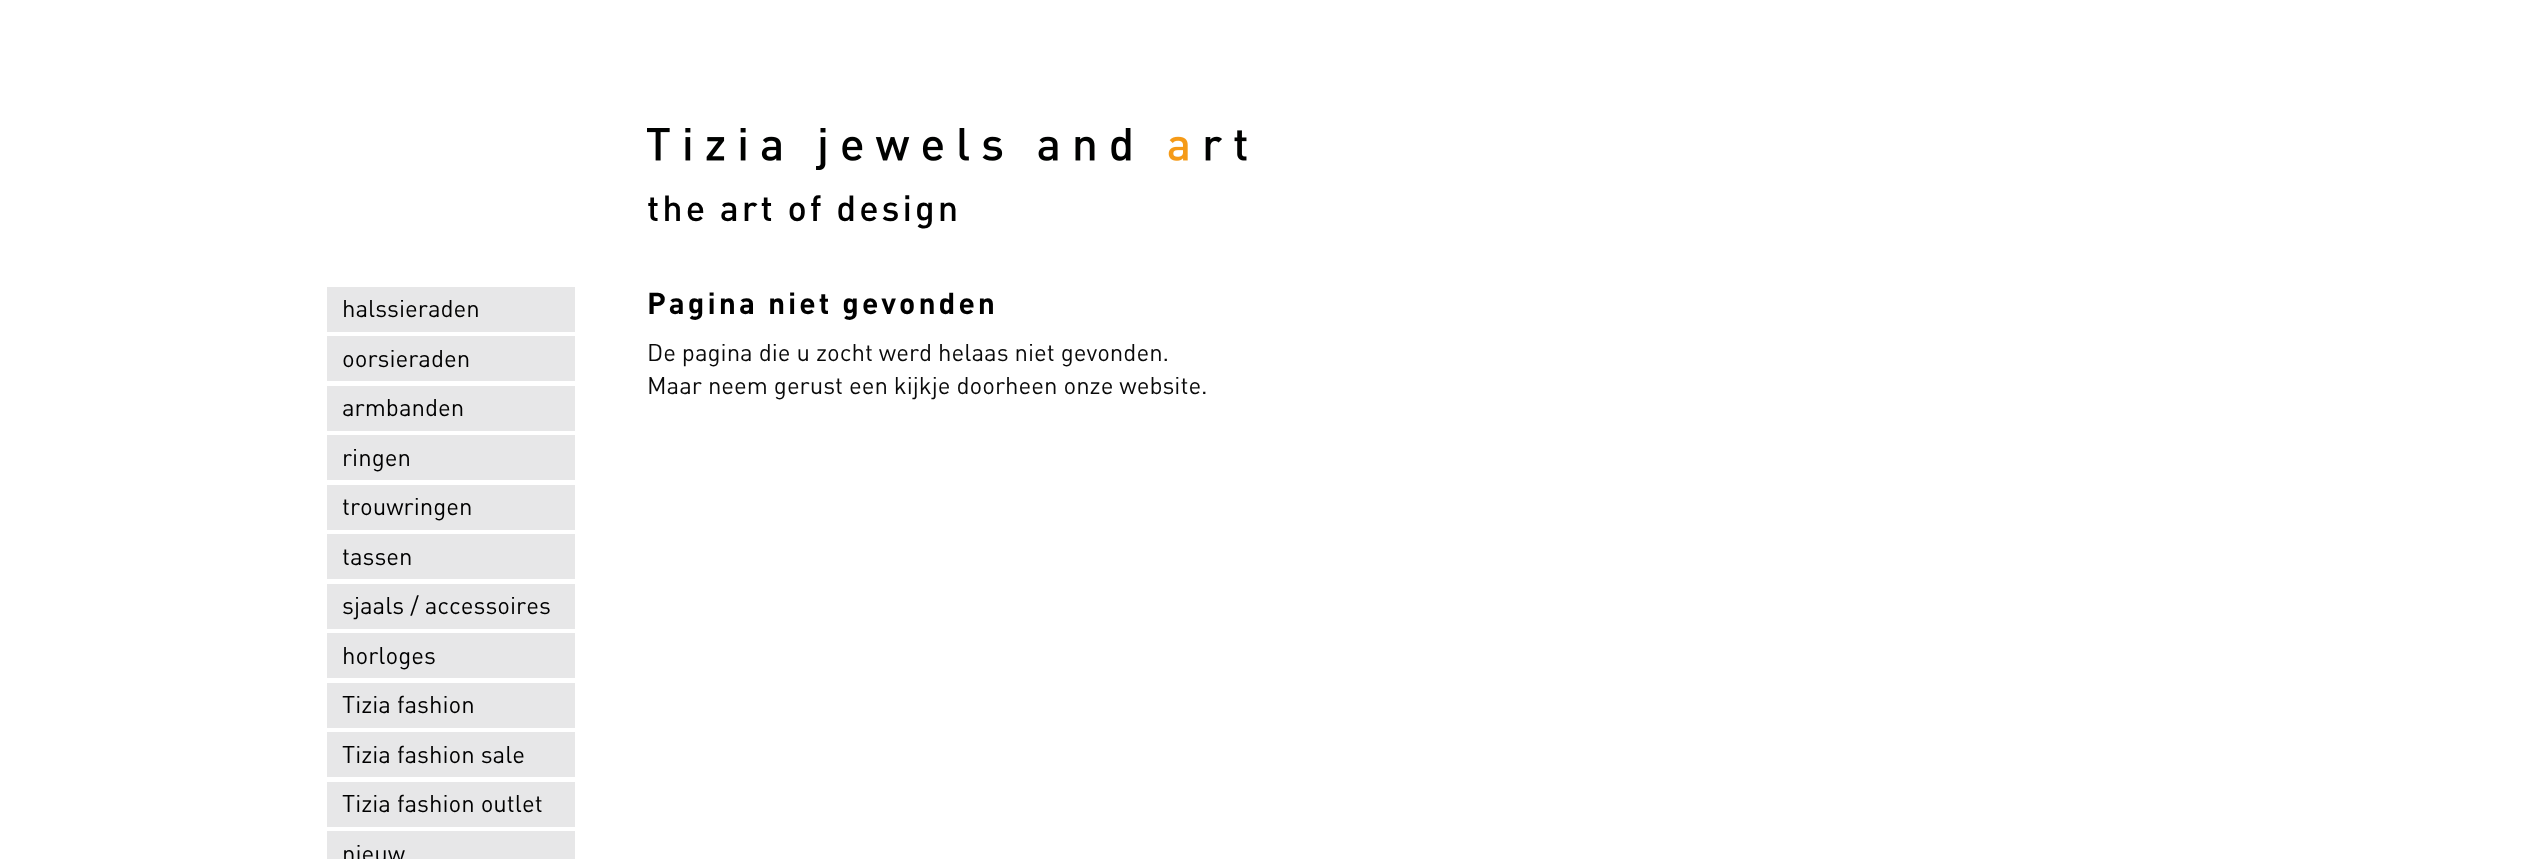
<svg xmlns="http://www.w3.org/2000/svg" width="2528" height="859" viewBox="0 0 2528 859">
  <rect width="100%" height="100%" fill="#ffffff"/>
  <image x="647" y="128" width="600" height="42" href="img1.png"/>
  <text x="647" y="221" font-family="DIN" font-size="36" font-weight="500" letter-spacing="3" fill="#000000">the art of design</text>
  <rect x="327" y="287" width="248" height="45" fill="#e7e7e8"/>
  <text x="342" y="317" font-family="DIN" font-size="24" fill="#000000">halssieraden</text>
  <rect x="327" y="336" width="248" height="45" fill="#e7e7e8"/>
  <text x="342" y="367" font-family="DIN" font-size="24" fill="#000000">oorsieraden</text>
  <rect x="327" y="386" width="248" height="45" fill="#e7e7e8"/>
  <text x="342" y="416" font-family="DIN" font-size="24" fill="#000000">armbanden</text>
  <rect x="327" y="435" width="248" height="45" fill="#e7e7e8"/>
  <text x="342" y="466" font-family="DIN" font-size="24" fill="#000000">ringen</text>
  <rect x="327" y="485" width="248" height="45" fill="#e7e7e8"/>
  <text x="342" y="515" font-family="DIN" font-size="24" fill="#000000">trouwringen</text>
  <rect x="327" y="534" width="248" height="45" fill="#e7e7e8"/>
  <text x="342" y="565" font-family="DIN" font-size="24" fill="#000000">tassen</text>
  <rect x="327" y="584" width="248" height="45" fill="#e7e7e8"/>
  <text x="342" y="614" font-family="DIN" font-size="24" fill="#000000">sjaals / accessoires</text>
  <rect x="327" y="633" width="248" height="45" fill="#e7e7e8"/>
  <text x="342" y="664" font-family="DIN" font-size="24" fill="#000000">horloges</text>
  <rect x="327" y="683" width="248" height="45" fill="#e7e7e8"/>
  <text x="342" y="713" font-family="DIN" font-size="24" fill="#000000">Tizia fashion</text>
  <rect x="327" y="732" width="248" height="45" fill="#e7e7e8"/>
  <text x="342" y="763" font-family="DIN" font-size="24" fill="#000000">Tizia fashion sale</text>
  <rect x="327" y="782" width="248" height="45" fill="#e7e7e8"/>
  <text x="342" y="812" font-family="DIN" font-size="24" fill="#000000">Tizia fashion outlet</text>
  <rect x="327" y="831" width="248" height="28" fill="#e7e7e8"/>
  <text x="342" y="862" font-family="DIN" font-size="24" fill="#000000">nieuw</text>
  <text x="647" y="314" font-family="DIN" font-size="30" font-weight="bold" letter-spacing="3" fill="#000000">Pagina niet gevonden</text>
  <text x="647" y="361" font-family="DIN" font-size="24" fill="#0a0a0a">De pagina die u zocht werd helaas niet gevonden.</text>
  <text x="647" y="394" font-family="DIN" font-size="24" fill="#0a0a0a">Maar neem gerust een kijkje doorheen onze website.</text>
</svg>
